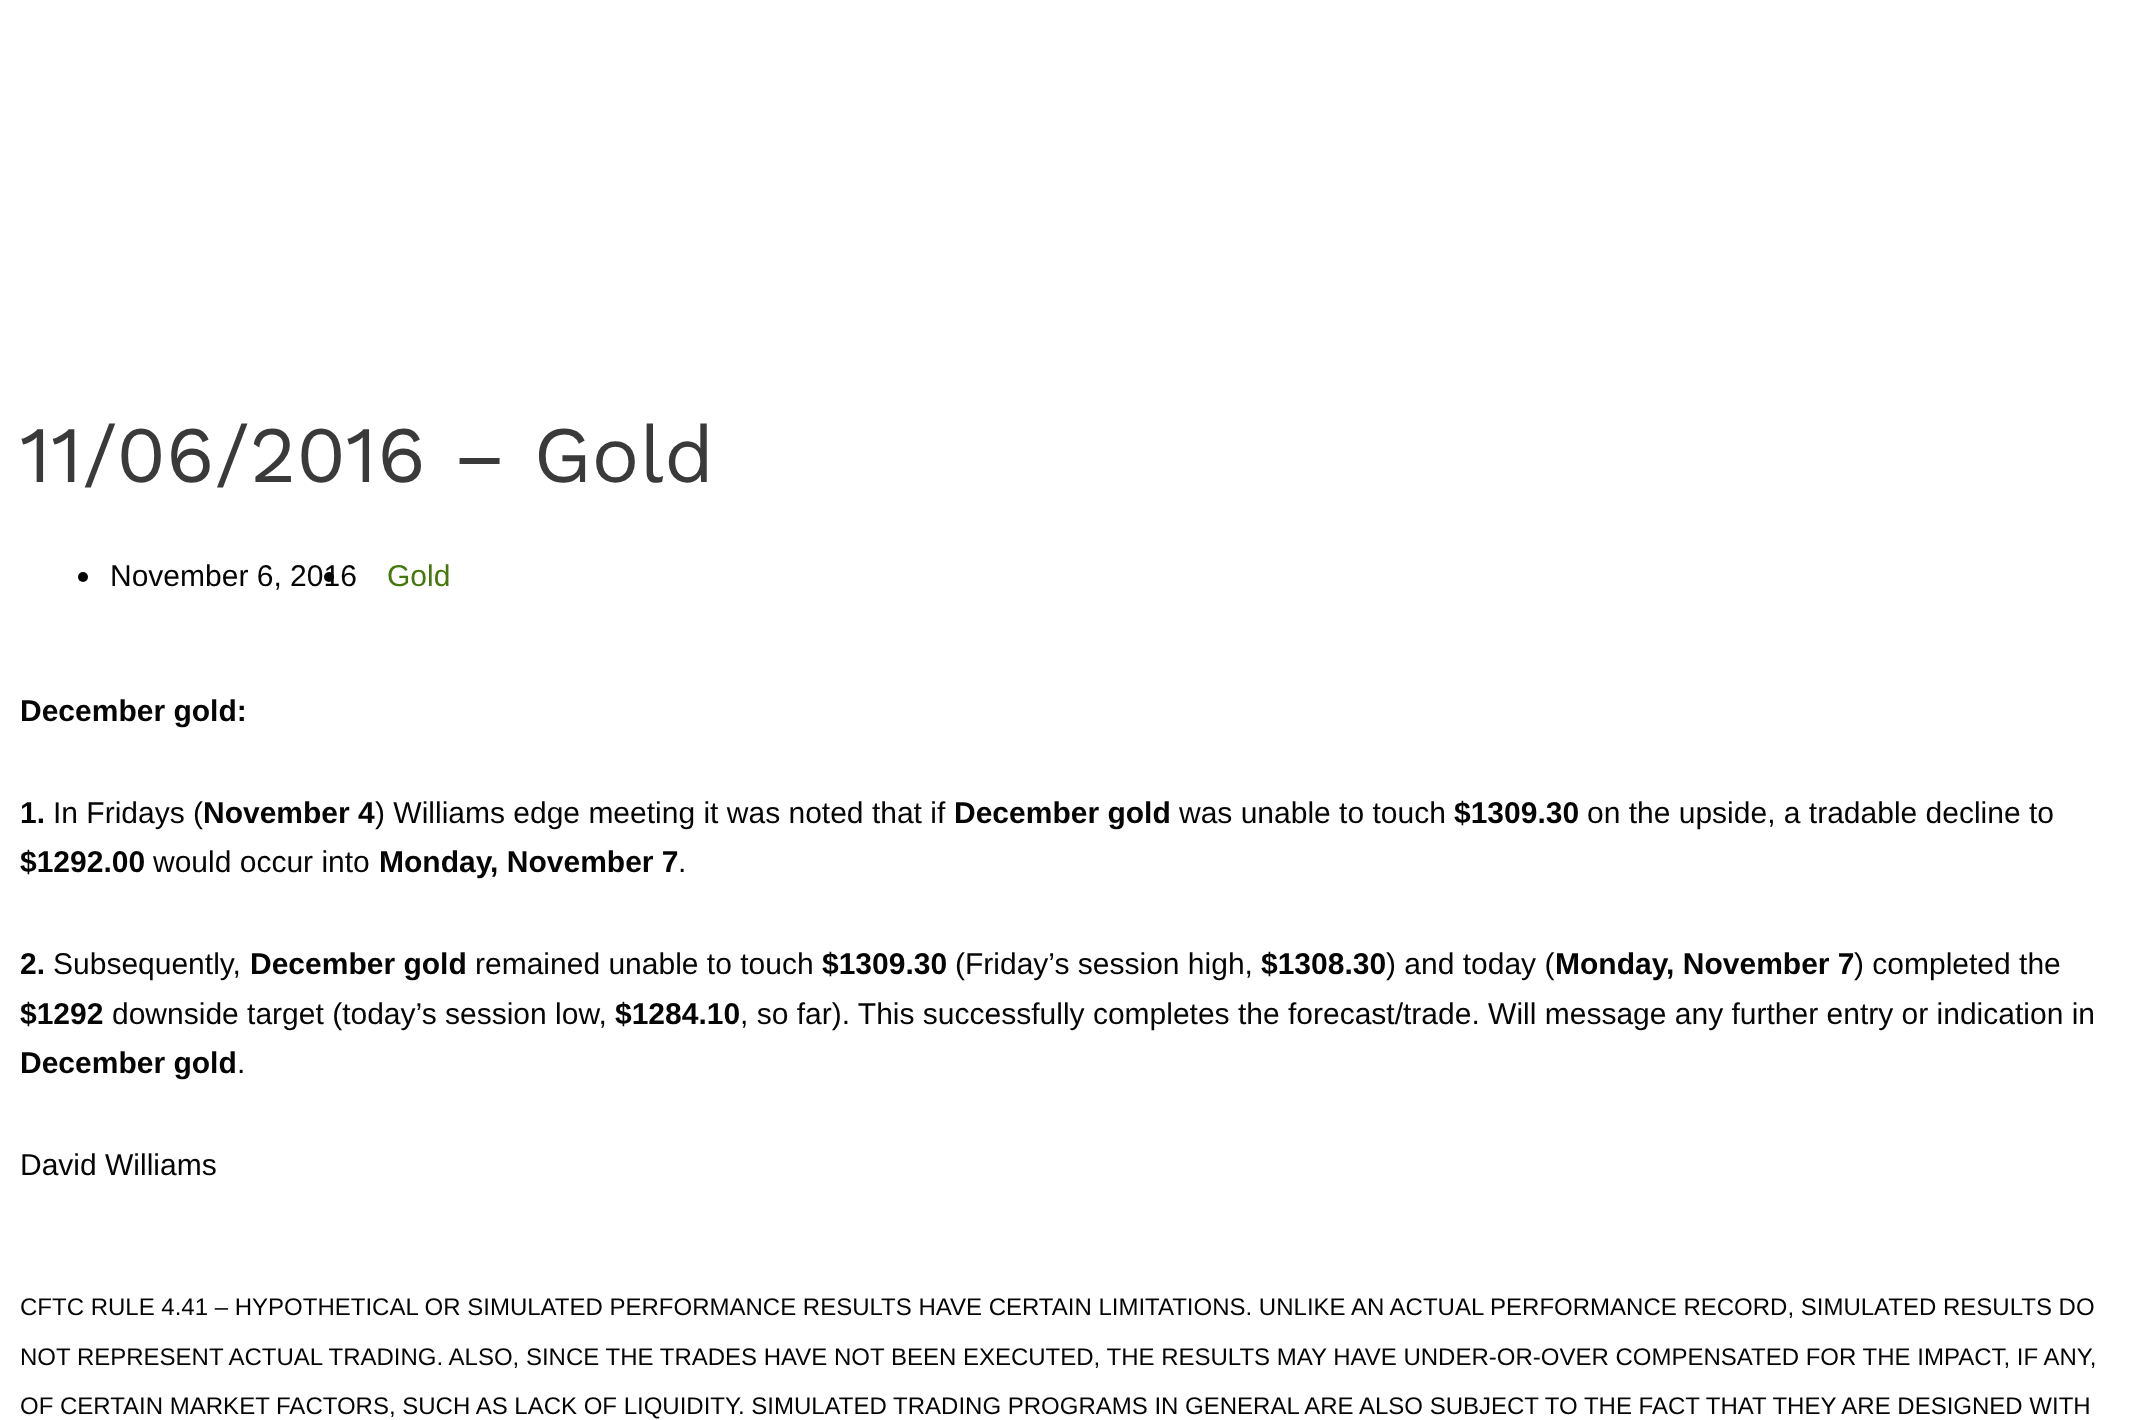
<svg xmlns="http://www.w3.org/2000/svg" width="2143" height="1420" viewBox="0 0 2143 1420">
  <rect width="100%" height="100%" fill="#ffffff"/>
  <text x="20" y="482" font-family="Work Sans" font-size="80" fill="#3a3a3a">11/06/2016 – Gold</text>
  <circle cx="83" cy="577" r="5" fill="#050505"/>
  <text x="110" y="586" font-family="Liberation Sans" font-size="30" fill="#050505">November 6, 2016</text>
  <circle cx="329" cy="577" r="5" fill="#050505"/>
  <text x="387" y="586" font-family="Liberation Sans" font-size="30" fill="#44780d">Gold</text>
  <text x="20" y="721" font-family="Liberation Sans" font-size="30" font-weight="bold" fill="#050505">December gold:</text>
  <text x="20" y="823" font-family="Liberation Sans" font-size="30" font-weight="bold" fill="#050505">1.</text>
  <text x="53" y="823" font-family="Liberation Sans" font-size="30" fill="#050505">In Fridays (</text>
  <text x="203" y="823" font-family="Liberation Sans" font-size="30" font-weight="bold" fill="#050505">November 4</text>
  <text x="375" y="823" font-family="Liberation Sans" font-size="30" fill="#050505">) Williams edge meeting it was noted that if</text>
  <text x="954" y="823" font-family="Liberation Sans" font-size="30" font-weight="bold" fill="#050505">December gold</text>
  <text x="1179" y="823" font-family="Liberation Sans" font-size="30" fill="#050505">was unable to touch</text>
  <text x="1454" y="823" font-family="Liberation Sans" font-size="30" font-weight="bold" fill="#050505">$1309.30</text>
  <text x="1587" y="823" font-family="Liberation Sans" font-size="30" fill="#050505">on the upside, a tradable decline to</text>
  <text x="20" y="872" font-family="Liberation Sans" font-size="30" font-weight="bold" fill="#050505">$1292.00</text>
  <text x="153" y="872" font-family="Liberation Sans" font-size="30" fill="#050505">would occur into</text>
  <text x="379" y="872" font-family="Liberation Sans" font-size="30" font-weight="bold" fill="#050505">Monday, November 7</text>
  <text x="678" y="872" font-family="Liberation Sans" font-size="30" fill="#050505">.</text>
  <text x="20" y="974" font-family="Liberation Sans" font-size="30" font-weight="bold" fill="#050505">2.</text>
  <text x="53" y="974" font-family="Liberation Sans" font-size="30" fill="#050505">Subsequently,</text>
  <text x="250" y="974" font-family="Liberation Sans" font-size="30" font-weight="bold" fill="#050505">December gold</text>
  <text x="475" y="974" font-family="Liberation Sans" font-size="30" fill="#050505">remained unable to touch</text>
  <text x="822" y="974" font-family="Liberation Sans" font-size="30" font-weight="bold" fill="#050505">$1309.30</text>
  <text x="955" y="974" font-family="Liberation Sans" font-size="30" fill="#050505">(Friday’s session high,</text>
  <text x="1261" y="974" font-family="Liberation Sans" font-size="30" font-weight="bold" fill="#050505">$1308.30</text>
  <text x="1386" y="974" font-family="Liberation Sans" font-size="30" fill="#050505">) and today (</text>
  <text x="1555" y="974" font-family="Liberation Sans" font-size="30" font-weight="bold" fill="#050505">Monday, November 7</text>
  <text x="1854" y="974" font-family="Liberation Sans" font-size="30" fill="#050505">) completed the</text>
  <text x="20" y="1024" font-family="Liberation Sans" font-size="30" font-weight="bold" fill="#050505">$1292</text>
  <text x="112" y="1024" font-family="Liberation Sans" font-size="30" fill="#050505">downside target (today’s session low,</text>
  <text x="615" y="1024" font-family="Liberation Sans" font-size="30" font-weight="bold" fill="#050505">$1284.10</text>
  <text x="740" y="1024" font-family="Liberation Sans" font-size="30" fill="#050505">, so far). This successfully completes the forecast/trade. Will message any further entry or indication in</text>
  <text x="20" y="1073" font-family="Liberation Sans" font-size="30" font-weight="bold" fill="#050505">December gold</text>
  <text x="237" y="1073" font-family="Liberation Sans" font-size="30" fill="#050505">.</text>
  <text x="20" y="1175" font-family="Liberation Sans" font-size="30" fill="#050505">David Williams</text>
  <text x="20" y="1315" font-family="Liberation Sans" font-size="24" fill="#050505">CFTC RULE 4.41 – HYPOTHETICAL OR SIMULATED PERFORMANCE RESULTS HAVE CERTAIN LIMITATIONS. UNLIKE AN ACTUAL PERFORMANCE RECORD, SIMULATED RESULTS DO</text>
  <text x="20" y="1365" font-family="Liberation Sans" font-size="24" fill="#050505">NOT REPRESENT ACTUAL TRADING. ALSO, SINCE THE TRADES HAVE NOT BEEN EXECUTED, THE RESULTS MAY HAVE UNDER-OR-OVER COMPENSATED FOR THE IMPACT, IF ANY,</text>
  <text x="20" y="1414" font-family="Liberation Sans" font-size="24" fill="#050505">OF CERTAIN MARKET FACTORS, SUCH AS LACK OF LIQUIDITY. SIMULATED TRADING PROGRAMS IN GENERAL ARE ALSO SUBJECT TO THE FACT THAT THEY ARE DESIGNED WITH</text>
</svg>
